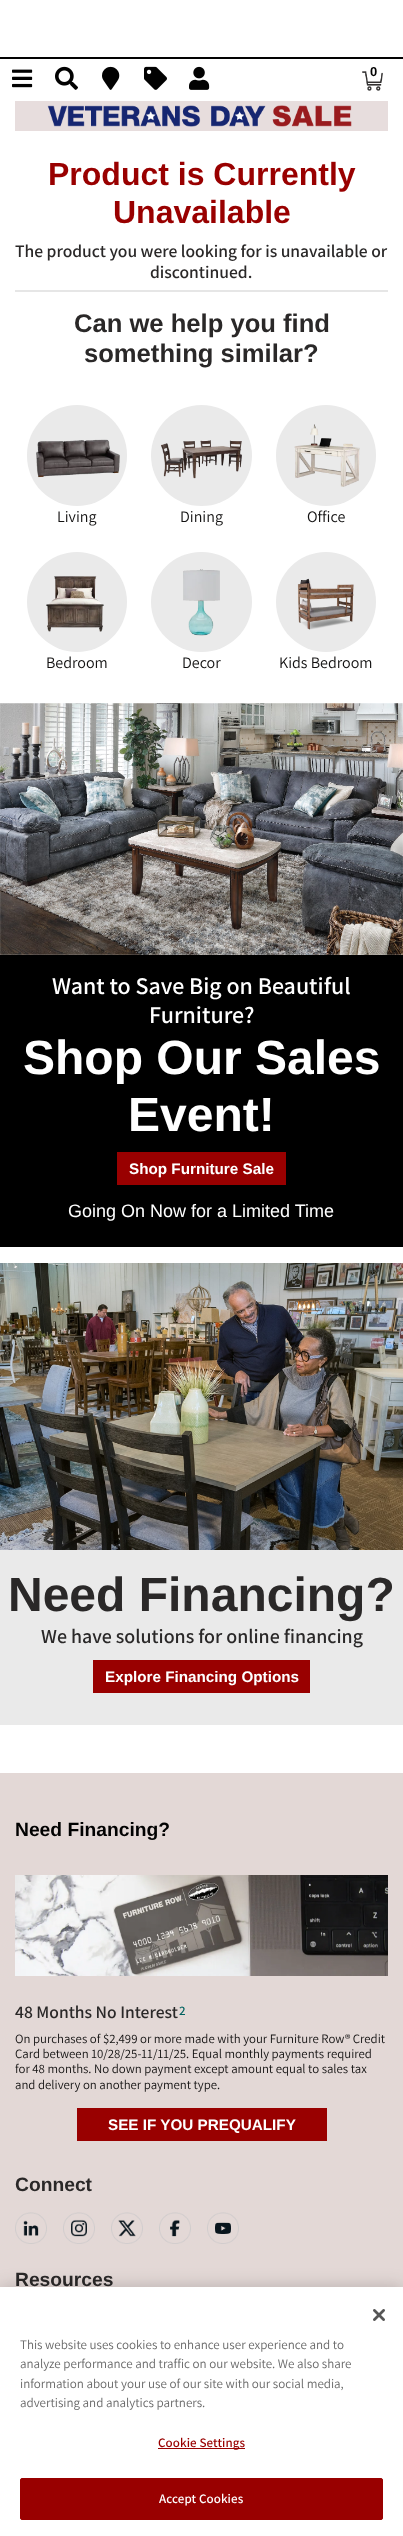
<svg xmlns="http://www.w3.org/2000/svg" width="403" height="2536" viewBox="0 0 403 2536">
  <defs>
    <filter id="blur1" x="-50%" y="-200%" width="200%" height="500%"><feGaussianBlur stdDeviation="9"/></filter>
  </defs>
  <rect width="100%" height="100%" fill="#ffffff"/>
  <rect x="0" y="57" width="403" height="2" fill="#020202"/>
  <image x="12" y="69" width="21" height="19" href="img1.png"/>
  <image x="55" y="66" width="23" height="24" href="img2.png"/>
  <image x="102" y="66" width="18" height="24" href="img3.png"/>
  <image x="144" y="66" width="23" height="24" href="img4.png"/>
  <image x="189" y="66" width="21" height="24" href="img5.png"/>
  <image x="362" y="71" width="21" height="20" href="img6.png"/>
  <text x="370" y="76" font-family="Liberation Sans" font-size="13" font-weight="bold" fill="#020202">0</text>
  <rect x="15" y="101" width="373" height="30" fill="#e7dddd"/>
  <image x="47" y="105" width="305" height="22" href="img7.png"/>
  <text x="48" y="185" font-family="Liberation Sans" font-size="32" font-weight="bold" fill="#990000">Product is Currently</text>
  <text x="113" y="223" font-family="Liberation Sans" font-size="32" font-weight="bold" fill="#990000">Unavailable</text>
  <text x="15" y="257" font-family="Assistant" font-size="17.6" font-weight="600" fill="#2a2828">The product you were looking for is unavailable or</text>
  <text x="150" y="278" font-family="Assistant" font-size="17.6" font-weight="600" fill="#2a2828">discontinued.</text>
  <rect x="15" y="290" width="373" height="2" fill="#e6e6e6"/>
  <text x="74" y="332" font-family="Liberation Sans" font-size="25.6" font-weight="bold" fill="#2a2828">Can we help you find</text>
  <text x="84" y="362" font-family="Liberation Sans" font-size="25.6" font-weight="bold" fill="#2a2828">something similar?</text>
  <rect x="27" y="405" width="100" height="101" rx="50" fill="#eaeaea"/>
  <image x="36" y="439" width="84" height="39" href="img8.png"/>
  <text x="57" y="522" font-family="Assistant" font-size="16" fill="#121111">Living</text>
  <circle cx="201.5" cy="455.5" r="50.5" fill="#eaeaea"/>
  <image x="161" y="440" width="81" height="39" href="img9.png"/>
  <text x="180" y="522" font-family="Assistant" font-size="16" fill="#121111">Dining</text>
  <rect x="276" y="405" width="100" height="101" rx="50" fill="#eaeaea"/>
  <image x="294" y="424" width="66" height="63" href="img10.png"/>
  <text x="307" y="522" font-family="Assistant" font-size="16" fill="#121111">Office</text>
  <circle cx="77" cy="602" r="50" fill="#eaeaea"/>
  <image x="46" y="576" width="58" height="56" href="img11.png"/>
  <text x="46" y="668" font-family="Assistant" font-size="16" fill="#121111">Bedroom</text>
  <rect x="151" y="552" width="101" height="100" rx="50" fill="#eaeaea"/>
  <image x="183" y="569" width="37" height="67" href="img12.png"/>
  <text x="182" y="668" font-family="Assistant" font-size="16" fill="#121111">Decor</text>
  <circle cx="326" cy="602" r="50" fill="#eaeaea"/>
  <image x="297" y="578" width="57" height="52" href="img13.png"/>
  <text x="279" y="668" font-family="Assistant" font-size="16" fill="#121111">Kids Bedroom</text>
  <rect x="0" y="955" width="403" height="292" fill="#000000"/>
  <image x="0" y="703" width="403" height="252" href="img14.png"/>
  <text x="52" y="994" font-family="Assistant" font-size="24" font-weight="600" fill="#ffffff">Want to Save Big on Beautiful</text>
  <text x="149" y="1023" font-family="Assistant" font-size="24" font-weight="600" fill="#ffffff">Furniture?</text>
  <text x="23" y="1074" font-family="Liberation Sans" font-size="48" font-weight="bold" fill="#ffffff">Shop Our Sales</text>
  <text x="128" y="1131" font-family="Liberation Sans" font-size="48" font-weight="bold" fill="#ffffff">Event!</text>
  <rect x="117" y="1152" width="169" height="33" fill="#990000"/>
  <text x="129" y="1174" font-family="Liberation Sans" font-size="15.25" font-weight="bold" fill="#ffffff">Shop Furniture Sale</text>
  <text x="68" y="1217" font-family="Liberation Sans" font-size="18" fill="#ffffff">Going On Now for a Limited Time</text>
  <rect x="0" y="1550" width="403" height="175" fill="#eaeaea"/>
  <image x="0" y="1263" width="403" height="287" href="img15.png"/>
  <text x="8" y="1611" font-family="Liberation Sans" font-size="48" font-weight="bold" fill="#2a2828">Need Financing?</text>
  <text x="41" y="1643" font-family="Assistant" font-size="20" font-weight="600" fill="#2a2828">We have solutions for online financing</text>
  <rect x="93" y="1660" width="217" height="33" fill="#990000"/>
  <text x="105" y="1682" font-family="Liberation Sans" font-size="15.25" font-weight="bold" fill="#ffffff">Explore Financing Options</text>
  <rect x="0" y="1773" width="403" height="514" fill="#e3d8d6"/>
  <text x="15" y="1836" font-family="Liberation Sans" font-size="19.25" font-weight="bold" fill="#020202">Need Financing?</text>
  <image x="15" y="1875" width="373" height="101" href="img16.png"/>
  <text x="15" y="2018" font-family="Assistant" font-size="17.6" font-weight="600" fill="#2a2828">48 Months No Interest</text>
  <text x="179" y="2015" font-family="Assistant" font-size="13" font-weight="600" fill="#00615f">2</text>
  <text x="15" y="2043" font-family="Assistant" font-size="12.8" fill="#121111">On purchases of $2,499 or more made with your Furniture Row® Credit</text>
  <text x="15" y="2058" font-family="Assistant" font-size="12.8" fill="#121111">Card between 10/28/25-11/11/25. Equal monthly payments required</text>
  <text x="15" y="2073" font-family="Assistant" font-size="12.8" fill="#121111">for 48 months. No down payment except amount equal to sales tax</text>
  <text x="15" y="2089" font-family="Assistant" font-size="12.8" fill="#121111">and delivery on another payment type.</text>
  <rect x="77" y="2108" width="250" height="33" fill="#990000"/>
  <text x="108" y="2130" font-family="Liberation Sans" font-size="15.25" font-weight="bold" fill="#ffffff">SEE IF YOU PREQUALIFY</text>
  <text x="15" y="2191" font-family="Liberation Sans" font-size="19.25" font-weight="bold" fill="#2a2828">Connect</text>
  <image x="15" y="2212" width="32" height="32" href="img17.png"/>
  <image x="63" y="2212" width="32" height="32" href="img18.png"/>
  <image x="111" y="2212" width="32" height="32" href="img19.png"/>
  <image x="159" y="2212" width="32" height="32" href="img20.png"/>
  <image x="207" y="2212" width="32" height="32" href="img21.png"/>
  <text x="15" y="2286" font-family="Liberation Sans" font-size="19.25" font-weight="bold" fill="#2a2828">Resources</text>
  <rect x="0" y="2287" width="403" height="249" fill="#000000" fill-opacity="0.2" filter="url(#blur1)"/>
  <rect x="0" y="2287" width="403" height="249" fill="#ffffff"/>
  <image x="373" y="2309" width="12" height="12" href="img22.png"/>
  <text x="20" y="2349" font-family="Assistant" font-size="13" fill="#696969">This website uses cookies to enhance user experience and to</text>
  <text x="20" y="2368" font-family="Assistant" font-size="13" fill="#696969">analyze performance and traffic on our website. We also share</text>
  <text x="20" y="2388" font-family="Assistant" font-size="13" fill="#696969">information about your use of our site with our social media,</text>
  <text x="20" y="2407" font-family="Assistant" font-size="13" fill="#696969">advertising and analytics partners.</text>
  <rect x="158" y="2448" width="87" height="1" fill="#990000"/>
  <text x="158" y="2447" font-family="Assistant" font-size="13" font-weight="600" letter-spacing="0.1" fill="#990000">Cookie Settings</text>
  <rect x="20.5" y="2478.5" width="362" height="41" rx="1.5" fill="#990000" stroke="#990000"/>
  <text x="159" y="2503" font-family="Assistant" font-size="13" font-weight="600" letter-spacing="0.1" fill="#ffffff">Accept Cookies</text>
</svg>
